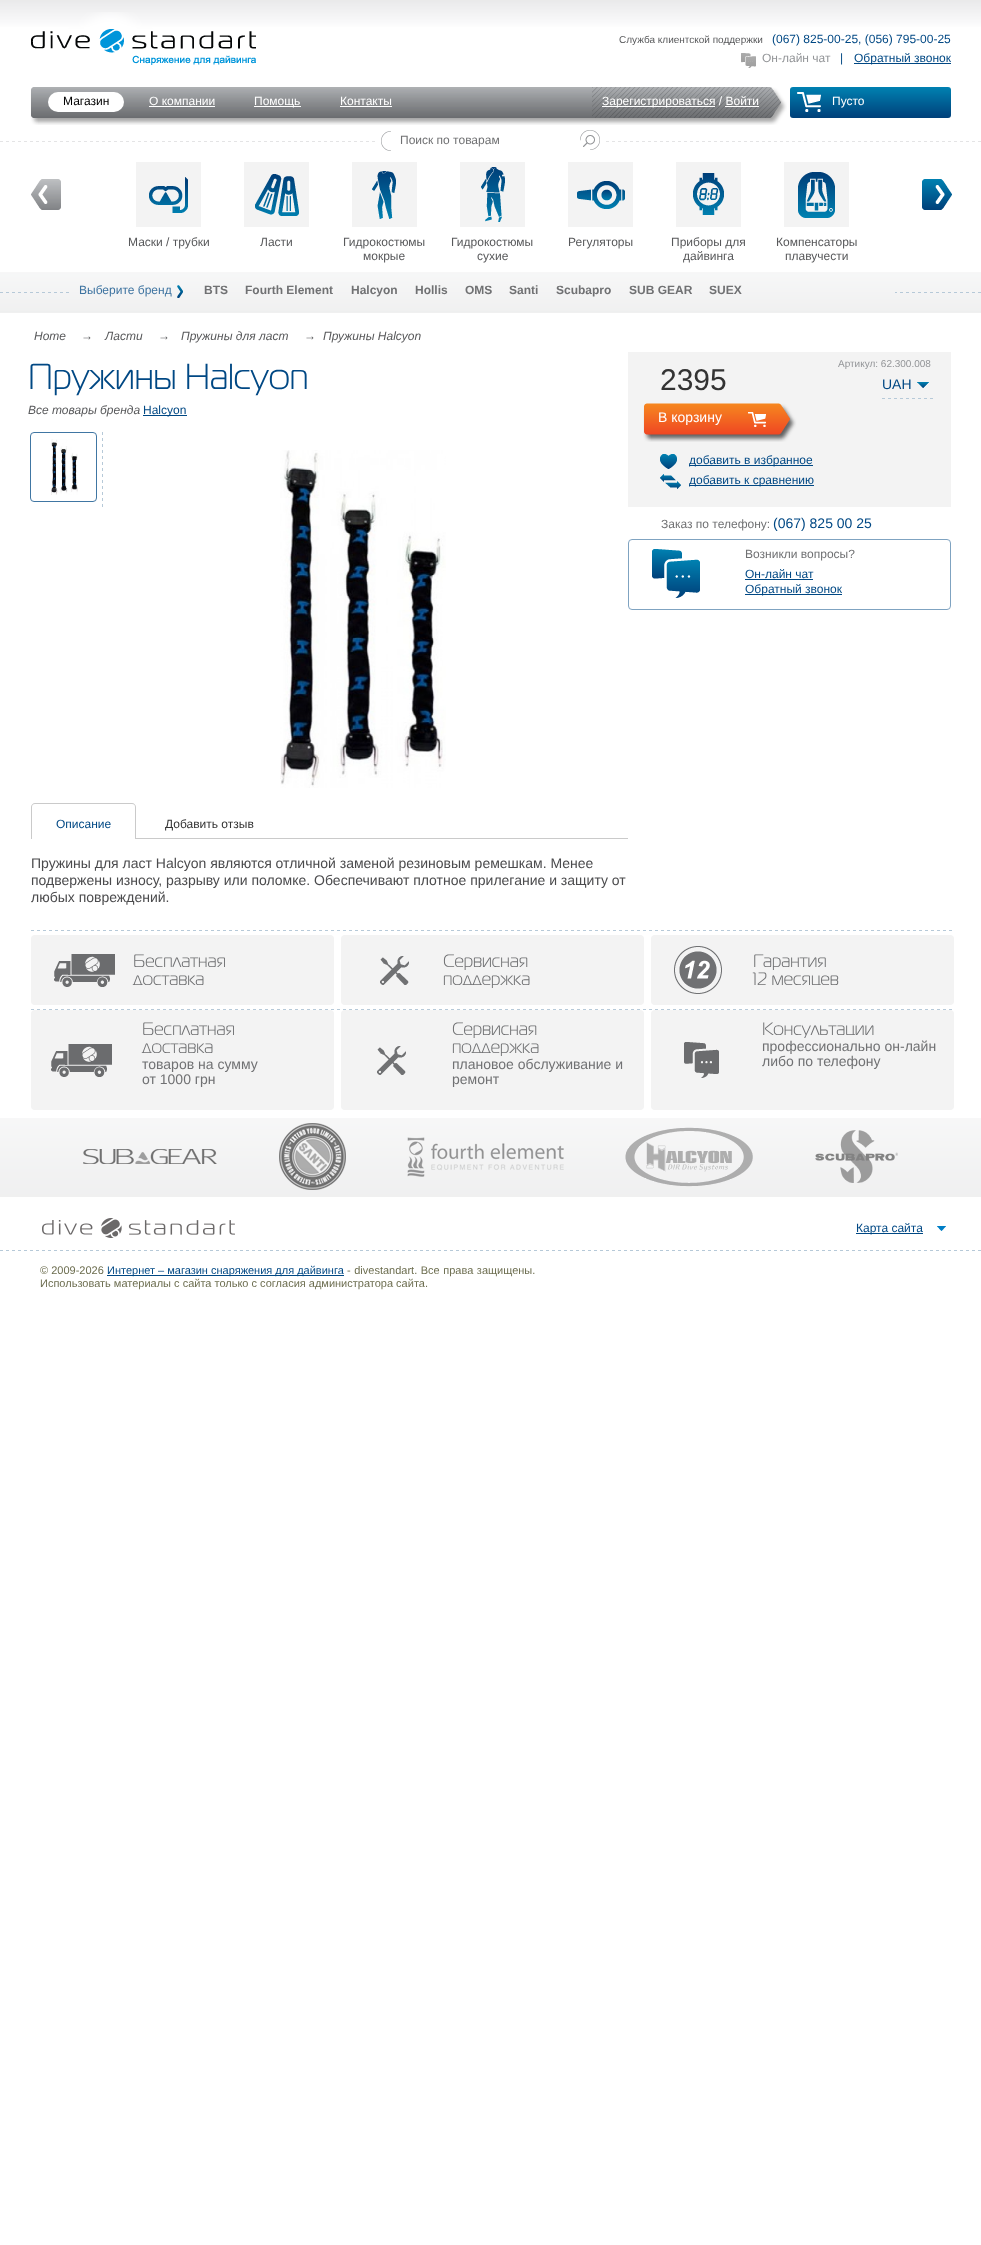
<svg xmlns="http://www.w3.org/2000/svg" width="981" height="2245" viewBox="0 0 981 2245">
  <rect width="100%" height="100%" fill="#ffffff"/>
  <image x="0" y="0" width="981" height="313" href="img1.png"/>
  <image x="0" y="1118" width="981" height="133" href="img2.png"/>
  <image x="31" y="12" width="225" height="53" href="img3.png"/>
  <text x="619" y="43" font-family="Liberation Sans" font-size="10" fill="#58595b">Служба клиентской поддержки</text>
  <text x="772" y="43" font-family="Liberation Sans" font-size="12" fill="#004884">(067) 825-00-25, (056) 795-00-25</text>
  <image x="741" y="53" width="15" height="15" href="img4.png"/>
  <text x="762" y="62" font-family="Liberation Sans" font-size="12" fill="#939598">Он-лайн чат</text>
  <text x="840" y="62" font-family="Liberation Sans" font-size="12" fill="#004884">|</text>
  <rect x="854" y="63" width="97" height="1" fill="#004884"/>
  <text x="854" y="62" font-family="Liberation Sans" font-size="12" fill="#004884">Обратный звонок</text>
  <image x="38" y="87" width="554" height="38" href="img5.png"/>
  <image x="30" y="87" width="8" height="38" href="img6.png"/>
  <rect x="48" y="92" width="76" height="20" rx="10" fill="#ffffff"/>
  <text x="63" y="105" font-family="Liberation Sans" font-size="12" fill="#000000">Магазин</text>
  <text x="149" y="105" font-family="Liberation Sans" font-size="12" fill="#ffffff">О компании</text>
  <rect x="149" y="106" width="66" height="1" fill="#ffffff"/>
  <rect x="254" y="106" width="47" height="1" fill="#ffffff"/>
  <text x="254" y="105" font-family="Liberation Sans" font-size="12" fill="#ffffff">Помощь</text>
  <text x="340" y="105" font-family="Liberation Sans" font-size="12" fill="#ffffff">Контакты</text>
  <rect x="340" y="106" width="52" height="1" fill="#ffffff"/>
  <image x="592" y="87" width="195" height="38" href="img7.png"/>
  <rect x="602" y="106" width="113" height="1" fill="#ffffff"/>
  <text x="602" y="105" font-family="Liberation Sans" font-size="12" fill="#ffffff">Зарегистрироваться / Войти</text>
  <rect x="725" y="106" width="34" height="1" fill="#ffffff"/>
  <image x="790" y="87" width="161" height="31" href="img8.png"/>
  <image x="797" y="92" width="24" height="20" href="img9.png"/>
  <text x="832" y="105" font-family="Liberation Sans" font-size="12" fill="#ffffff">Пусто</text>
  <image x="378" y="131" width="225" height="20" href="img10.png"/>
  <text x="400" y="144" font-family="Liberation Sans" font-size="12" fill="#707173">Поиск по товарам</text>
  <image x="580" y="130" width="20" height="20" href="img11.png"/>
  <image x="31" y="179" width="30" height="31" href="img12.png"/>
  <image x="922" y="179" width="30" height="31" href="img13.png"/>
  <rect x="136" y="162" width="65" height="65" fill="#f3f3f3"/>
  <image x="149" y="177" width="39" height="36" href="img14.png"/>
  <text x="128" y="246" font-family="Liberation Sans" font-size="12" fill="#58595b">Маски / трубки</text>
  <rect x="244" y="162" width="65" height="65" fill="#f3f3f3"/>
  <image x="255" y="174" width="44" height="42" href="img15.png"/>
  <text x="260" y="246" font-family="Liberation Sans" font-size="12" fill="#58595b">Ласти</text>
  <rect x="352" y="162" width="65" height="65" fill="#f3f3f3"/>
  <image x="372" y="171" width="24" height="48" href="img16.png"/>
  <text x="343" y="246" font-family="Liberation Sans" font-size="12" fill="#58595b">Гидрокостюмы</text>
  <text x="363" y="260" font-family="Liberation Sans" font-size="12" fill="#58595b">мокрые</text>
  <rect x="460" y="162" width="65" height="65" fill="#f3f3f3"/>
  <image x="481" y="167" width="24" height="55" href="img17.png"/>
  <text x="451" y="246" font-family="Liberation Sans" font-size="12" fill="#58595b">Гидрокостюмы</text>
  <text x="477" y="260" font-family="Liberation Sans" font-size="12" fill="#58595b">сухие</text>
  <rect x="568" y="162" width="65" height="65" fill="#f3f3f3"/>
  <image x="577" y="181" width="48" height="28" href="img18.png"/>
  <text x="568" y="246" font-family="Liberation Sans" font-size="12" fill="#58595b">Регуляторы</text>
  <rect x="676" y="162" width="65" height="65" fill="#f3f3f3"/>
  <image x="693" y="173" width="31" height="42" href="img19.png"/>
  <text x="671" y="246" font-family="Liberation Sans" font-size="12" fill="#58595b">Приборы для</text>
  <text x="683" y="260" font-family="Liberation Sans" font-size="12" fill="#58595b">дайвинга</text>
  <rect x="784" y="162" width="65" height="65" fill="#f3f3f3"/>
  <image x="798" y="172" width="37" height="46" href="img20.png"/>
  <text x="776" y="246" font-family="Liberation Sans" font-size="12" fill="#58595b">Компенсаторы</text>
  <text x="785" y="260" font-family="Liberation Sans" font-size="12" fill="#58595b">плавучести</text>
  <rect x="72" y="292" width="823" height="1" fill="#f3f3f4"/>
  <image x="177" y="285" width="6" height="13" href="img21.png"/>
  <text x="79" y="294" font-family="Liberation Sans" font-size="12" fill="#3d73a0">Выберите бренд</text>
  <text x="204" y="294" font-family="Liberation Sans" font-size="12" font-weight="bold" fill="#707173">BTS</text>
  <text x="245" y="294" font-family="Liberation Sans" font-size="12" font-weight="bold" fill="#707173">Fourth Element</text>
  <text x="351" y="294" font-family="Liberation Sans" font-size="12" font-weight="bold" fill="#707173">Halcyon</text>
  <text x="415" y="294" font-family="Liberation Sans" font-size="12" font-weight="bold" fill="#707173">Hollis</text>
  <text x="465" y="294" font-family="Liberation Sans" font-size="12" font-weight="bold" fill="#707173">OMS</text>
  <text x="509" y="294" font-family="Liberation Sans" font-size="12" font-weight="bold" fill="#707173">Santi</text>
  <text x="556" y="294" font-family="Liberation Sans" font-size="12" font-weight="bold" fill="#707173">Scubapro</text>
  <text x="629" y="294" font-family="Liberation Sans" font-size="12" font-weight="bold" fill="#707173">SUB GEAR</text>
  <text x="709" y="294" font-family="Liberation Sans" font-size="12" font-weight="bold" fill="#707173">SUEX</text>
  <text x="34" y="340" font-family="Liberation Sans" font-size="12" font-style="italic" fill="#58595b">Home</text>
  <text x="81" y="340" font-family="Liberation Sans" font-size="12" font-style="italic" fill="#58595b">→</text>
  <text x="105" y="340" font-family="Liberation Sans" font-size="12" font-style="italic" fill="#58595b">Ласти</text>
  <text x="158" y="340" font-family="Liberation Sans" font-size="12" font-style="italic" fill="#58595b">→</text>
  <text x="181" y="340" font-family="Liberation Sans" font-size="12" font-style="italic" fill="#58595b">Пружины для ласт</text>
  <text x="304" y="340" font-family="Liberation Sans" font-size="12" font-style="italic" fill="#58595b">→</text>
  <text x="323" y="340" font-family="Liberation Sans" font-size="12" font-style="italic" fill="#58595b">Пружины Halcyon</text>
  <text x="28" y="389" font-family="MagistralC" font-size="36" fill="#004884">Пружины Halcyon</text>
  <rect x="628" y="352" width="323" height="155" fill="#f3f3f3"/>
  <text x="838" y="367" font-family="Liberation Sans" font-size="10" fill="#939598">Артикул: 62.300.008</text>
  <text x="660" y="390" font-family="Liberation Sans" font-size="30" fill="#333333">2395</text>
  <image x="882" y="398" width="51" height="1" href="img22.png"/>
  <image x="917" y="382" width="12" height="6" href="img23.png"/>
  <text x="882" y="389" font-family="Liberation Sans" font-size="14" fill="#004884">UAH</text>
  <image x="651" y="403" width="128" height="39" href="img24.png"/>
  <image x="643" y="403" width="8" height="39" href="img25.png"/>
  <image x="779" y="403" width="18" height="39" href="img26.png"/>
  <image x="748" y="412" width="18" height="15" href="img27.png"/>
  <text x="658" y="422" font-family="Liberation Sans" font-size="14" fill="#ffffff">В корзину</text>
  <image x="660" y="454" width="17" height="15" href="img28.png"/>
  <rect x="689" y="465" width="124" height="1" fill="#004884"/>
  <text x="689" y="464" font-family="Liberation Sans" font-size="12" fill="#004884">добавить в избранное</text>
  <image x="660" y="474" width="21" height="15" href="img29.png"/>
  <rect x="689" y="485" width="125" height="1" fill="#004884"/>
  <text x="689" y="484" font-family="Liberation Sans" font-size="12" fill="#004884">добавить к сравнению</text>
  <text x="661" y="528" font-family="Liberation Sans" font-size="12" fill="#707173">Заказ по телефону:</text>
  <text x="773" y="528" font-family="Liberation Sans" font-size="14" fill="#004884">(067) 825 00 25</text>
  <image x="652" y="549" width="48" height="49" href="img30.png"/>
  <rect x="628.5" y="539.5" width="322" height="70" rx="3.5" fill="none" stroke="#7fa3c1"/>
  <text x="745" y="558" font-family="Liberation Sans" font-size="12" fill="#707173">Возникли вопросы?</text>
  <text x="745" y="578" font-family="Liberation Sans" font-size="12" fill="#004884">Он-лайн чат</text>
  <rect x="745" y="579" width="68" height="1" fill="#004884"/>
  <rect x="745" y="594" width="97" height="1" fill="#004884"/>
  <text x="745" y="593" font-family="Liberation Sans" font-size="12" fill="#004884">Обратный звонок</text>
  <text x="28" y="414" font-family="Liberation Sans" font-size="12" font-style="italic" fill="#58595b">Все товары бренда</text>
  <rect x="143" y="415" width="44" height="1" fill="#004884"/>
  <text x="143" y="414" font-family="Liberation Sans" font-size="12" fill="#004884">Halcyon</text>
  <image x="102" y="432" width="1" height="75" href="img31.png"/>
  <rect x="30.5" y="432.5" width="66" height="69" rx="3.5" fill="none" stroke="#4076a3"/>
  <image x="51" y="439" width="27" height="56" href="img32.png"/>
  <image x="280" y="450" width="166" height="338" href="img33.png"/>
  <rect x="136" y="838" width="492" height="1" fill="#cacaca"/>
  <path d="M35 803H132C134 803 136 805 136 807V839H31V807C31 805 33 803 35 803ZM35 804H132C134 804 135 805 135 807V839H32V807C32 805 33 804 35 804Z" fill="#cacaca" fill-rule="evenodd"/>
  <text x="56" y="828" font-family="Liberation Sans" font-size="12" fill="#004884">Описание</text>
  <text x="165" y="828" font-family="Liberation Sans" font-size="12" fill="#333333">Добавить отзыв</text>
  <text x="31" y="868" font-family="Liberation Sans" font-size="14" fill="#4b4b4d">Пружины для ласт Halcyon являются отличной заменой резиновым ремешкам. Менее</text>
  <text x="31" y="885" font-family="Liberation Sans" font-size="14" fill="#4b4b4d">подвержены износу, разрыву или поломке. Обеспечивают плотное прилегание и защиту от</text>
  <text x="31" y="902" font-family="Liberation Sans" font-size="14" fill="#4b4b4d">любых повреждений.</text>
  <image x="31" y="930" width="921" height="1" href="img34.png"/>
  <rect x="31" y="935" width="303" height="70" rx="4" fill="#f3f3f3"/>
  <image x="54" y="954" width="61" height="33" href="img35.png"/>
  <text x="133" y="967" font-family="MagistralC" font-size="18" fill="#707173">Бесплатная</text>
  <text x="133" y="985" font-family="MagistralC" font-size="18" fill="#707173">доставка</text>
  <rect x="341" y="935" width="303" height="70" rx="4" fill="#f3f3f3"/>
  <image x="380" y="956" width="29" height="29" href="img36.png"/>
  <text x="443" y="967" font-family="MagistralC" font-size="18" fill="#707173">Сервисная</text>
  <text x="443" y="985" font-family="MagistralC" font-size="18" fill="#707173">поддержка</text>
  <rect x="651" y="935" width="303" height="70" rx="4" fill="#f3f3f3"/>
  <image x="674" y="946" width="48" height="48" href="img37.png"/>
  <text x="753" y="967" font-family="MagistralC" font-size="18" fill="#707173">Гарантия</text>
  <text x="753" y="985" font-family="MagistralC" font-size="18" fill="#707173">12 месяцев</text>
  <image x="31" y="1009" width="921" height="1" href="img34.png"/>
  <rect x="31" y="1010" width="303" height="100" rx="4" fill="#f3f3f3"/>
  <image x="51" y="1044" width="61" height="33" href="img35.png"/>
  <text x="142" y="1035" font-family="MagistralC" font-size="18" fill="#707173">Бесплатная</text>
  <text x="142" y="1053" font-family="MagistralC" font-size="18" fill="#707173">доставка</text>
  <text x="142" y="1069" font-family="Liberation Sans" font-size="14" fill="#707173">товаров на сумму</text>
  <text x="142" y="1084" font-family="Liberation Sans" font-size="14" fill="#707173">от 1000 грн</text>
  <rect x="341" y="1010" width="303" height="100" rx="4" fill="#f3f3f3"/>
  <image x="377" y="1046" width="29" height="29" href="img36.png"/>
  <text x="452" y="1035" font-family="MagistralC" font-size="18" fill="#707173">Сервисная</text>
  <text x="452" y="1053" font-family="MagistralC" font-size="18" fill="#707173">поддержка</text>
  <text x="452" y="1069" font-family="Liberation Sans" font-size="14" fill="#707173">плановое обслуживание и</text>
  <text x="452" y="1084" font-family="Liberation Sans" font-size="14" fill="#707173">ремонт</text>
  <rect x="651" y="1010" width="303" height="100" rx="4" fill="#f3f3f3"/>
  <image x="684" y="1042" width="35" height="36" href="img38.png"/>
  <text x="762" y="1035" font-family="MagistralC" font-size="18" fill="#707173">Консультации</text>
  <text x="762" y="1051" font-family="Liberation Sans" font-size="14" fill="#707173">профессионально он-лайн</text>
  <text x="762" y="1066" font-family="Liberation Sans" font-size="14" fill="#707173">либо по телефону</text>
  <image x="83" y="1149" width="134" height="15" href="img39.png"/>
  <image x="279" y="1123" width="67" height="67" href="img40.png"/>
  <image x="407" y="1137" width="157" height="40" href="img41.png"/>
  <image x="625" y="1127" width="128" height="60" href="img42.png"/>
  <image x="815" y="1130" width="83" height="53" href="img43.png"/>
  <image x="42" y="1218" width="193" height="20" href="img44.png"/>
  <image x="937" y="1226" width="9" height="5" href="img45.png"/>
  <rect x="856" y="1233" width="67" height="1" fill="#004884"/>
  <text x="856" y="1232" font-family="Liberation Sans" font-size="12" fill="#004884">Карта сайта</text>
  <text x="40" y="1274" font-family="Liberation Sans" font-size="11" fill="#6d6e50">© 2009-2026</text>
  <rect x="107" y="1275" width="237" height="1" fill="#004884"/>
  <text x="107" y="1274" font-family="Liberation Sans" font-size="11" fill="#004884">Интернет – магазин снаряжения для дайвинга</text>
  <text x="347" y="1274" word-spacing="0.5" font-family="Liberation Sans" font-size="11" fill="#6d6e50">- divestandart. Все права защищены.</text>
  <text x="40" y="1287" font-family="Liberation Sans" font-size="11" fill="#6d6e50">Использовать материалы с сайта только с согласия администратора сайта.</text>
</svg>
